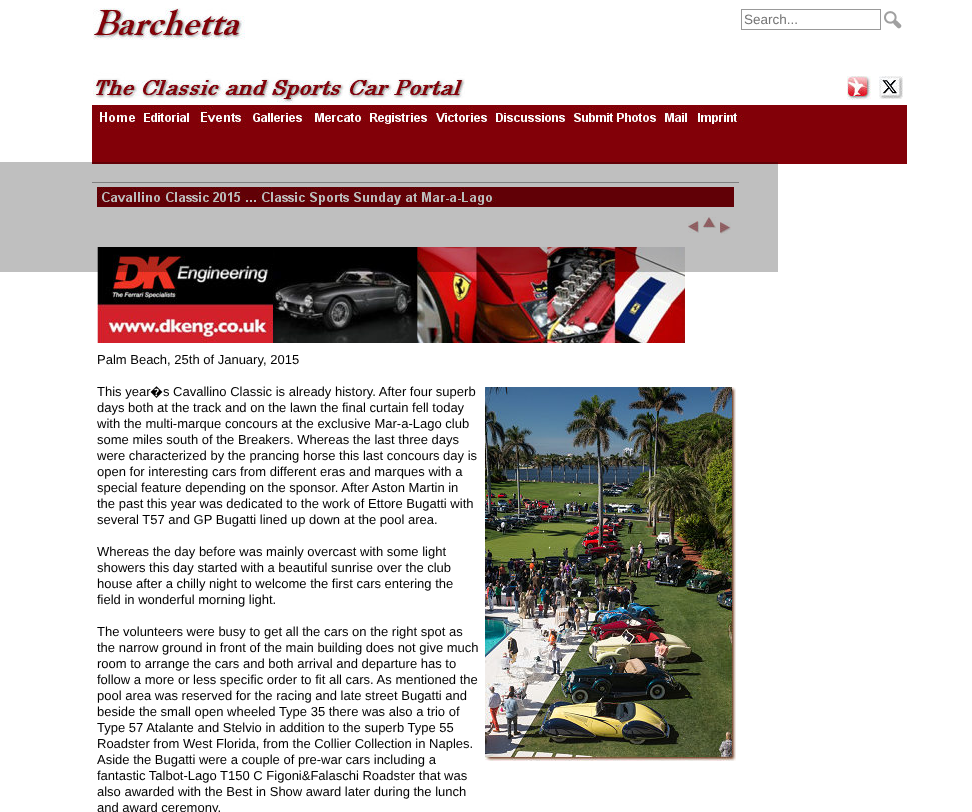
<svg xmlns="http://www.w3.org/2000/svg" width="972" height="812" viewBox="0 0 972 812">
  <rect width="100%" height="100%" fill="#ffffff"/>
  <image x="93" y="8" width="372" height="95" href="img1.png"/>
  <rect x="741.5" y="9.5" width="139" height="20" fill="none" stroke="#999999"/>
  <text x="744" y="24" font-family="Liberation Sans" font-size="13.5" fill="#757575">Search...</text>
  <image x="884" y="11" width="18" height="18" href="img2.png"/>
  <image x="847" y="76" width="24" height="24" href="img3.png"/>
  <image x="879" y="76" width="24" height="23" href="img4.png"/>
  <rect x="92" y="105" width="815" height="59" fill="#820008"/>
  <image x="97" y="105" width="40" height="24" href="img5.png"/>
  <image x="142" y="106" width="48" height="16" href="img6.png"/>
  <image x="198" y="105" width="48" height="24" href="img7.png"/>
  <image x="251" y="106" width="56" height="16" href="img8.png"/>
  <image x="311" y="106" width="56" height="16" href="img9.png"/>
  <image x="368" y="106" width="64" height="24" href="img10.png"/>
  <image x="434" y="106" width="56" height="16" href="img11.png"/>
  <image x="494" y="106" width="72" height="16" href="img12.png"/>
  <image x="572" y="106" width="88" height="16" href="img13.png"/>
  <image x="663" y="106" width="24" height="16" href="img14.png"/>
  <image x="696" y="106" width="48" height="24" href="img15.png"/>
  <rect x="92" y="182" width="647" height="1" fill="#aaaaaa"/>
  <image x="97" y="187" width="637" height="20" href="img16.png"/>
  <image x="688" y="221" width="11" height="12" href="img17.png"/>
  <image x="703" y="217" width="13" height="11" href="img18.png"/>
  <image x="720" y="222" width="11" height="12" href="img19.png"/>
  <image x="97" y="247" width="588" height="96" href="img20.png"/>
  <rect x="0" y="162" width="778" height="110" fill="#000000" fill-opacity="0.25"/>
  <text x="97" y="364" font-family="Liberation Sans" font-size="13" fill="#000000">Palm Beach, 25th of January, 2015</text>
  <text x="97" y="396" font-family="Liberation Sans" font-size="13" fill="#000000">This year</text>
  <text x="150" y="396" font-family="Noto Sans" font-size="13" fill="#000000">�</text>
  <text x="163" y="396" font-family="Liberation Sans" font-size="13" fill="#000000">s Cavallino Classic is already history. After four superb</text>
  <text x="97" y="412" font-family="Liberation Sans" font-size="13" fill="#000000">days both at the track and on the lawn the final curtain fell today</text>
  <text x="97" y="428" font-family="Liberation Sans" font-size="13" fill="#000000">with the multi-marque concours at the exclusive Mar-a-Lago club</text>
  <text x="97" y="444" font-family="Liberation Sans" font-size="13" fill="#000000">some miles south of the Breakers. Whereas the last three days</text>
  <text x="97" y="460" font-family="Liberation Sans" font-size="13" fill="#000000">were characterized by the prancing horse this last concours day is</text>
  <text x="97" y="476" font-family="Liberation Sans" font-size="13" fill="#000000">open for interesting cars from different eras and marques with a</text>
  <text x="97" y="492" font-family="Liberation Sans" font-size="13" fill="#000000">special feature depending on the sponsor. After Aston Martin in</text>
  <text x="97" y="508" font-family="Liberation Sans" font-size="13" fill="#000000">the past this year was dedicated to the work of Ettore Bugatti with</text>
  <text x="97" y="524" font-family="Liberation Sans" font-size="13" fill="#000000">several T57 and GP Bugatti lined up down at the pool area.</text>
  <text x="97" y="556" font-family="Liberation Sans" font-size="13" fill="#000000">Whereas the day before was mainly overcast with some light</text>
  <text x="97" y="572" font-family="Liberation Sans" font-size="13" fill="#000000">showers this day started with a beautiful sunrise over the club</text>
  <text x="97" y="588" font-family="Liberation Sans" font-size="13" fill="#000000">house after a chilly night to welcome the first cars entering the</text>
  <text x="97" y="604" font-family="Liberation Sans" font-size="13" fill="#000000">field in wonderful morning light.</text>
  <text x="97" y="636" font-family="Liberation Sans" font-size="13" fill="#000000">The volunteers were busy to get all the cars on the right spot as</text>
  <text x="97" y="652" font-family="Liberation Sans" font-size="13" fill="#000000">the narrow ground in front of the main building does not give much</text>
  <text x="97" y="668" font-family="Liberation Sans" font-size="13" fill="#000000">room to arrange the cars and both arrival and departure has to</text>
  <text x="97" y="684" font-family="Liberation Sans" font-size="13" fill="#000000">follow a more or less specific order to fit all cars. As mentioned the</text>
  <text x="97" y="700" font-family="Liberation Sans" font-size="13" fill="#000000">pool area was reserved for the racing and late street Bugatti and</text>
  <text x="97" y="716" font-family="Liberation Sans" font-size="13" fill="#000000">beside the small open wheeled Type 35 there was also a trio of</text>
  <text x="97" y="732" font-family="Liberation Sans" font-size="13" fill="#000000">Type 57 Atalante and Stelvio in addition to the superb Type 55</text>
  <text x="97" y="748" font-family="Liberation Sans" font-size="13" fill="#000000">Roadster from West Florida, from the Collier Collection in Naples.</text>
  <text x="97" y="764" font-family="Liberation Sans" font-size="13" fill="#000000">Aside the Bugatti were a couple of pre-war cars including a</text>
  <text x="97" y="780" font-family="Liberation Sans" font-size="13" fill="#000000">fantastic Talbot-Lago T150 C Figoni&amp;Falaschi Roadster that was</text>
  <text x="97" y="796" font-family="Liberation Sans" font-size="13" fill="#000000">also awarded with the Best in Show award later during the lunch</text>
  <text x="97" y="812" font-family="Liberation Sans" font-size="13" fill="#000000">and award ceremony.</text>
  <image x="485" y="387" width="251" height="374" href="img21.png"/>
</svg>
